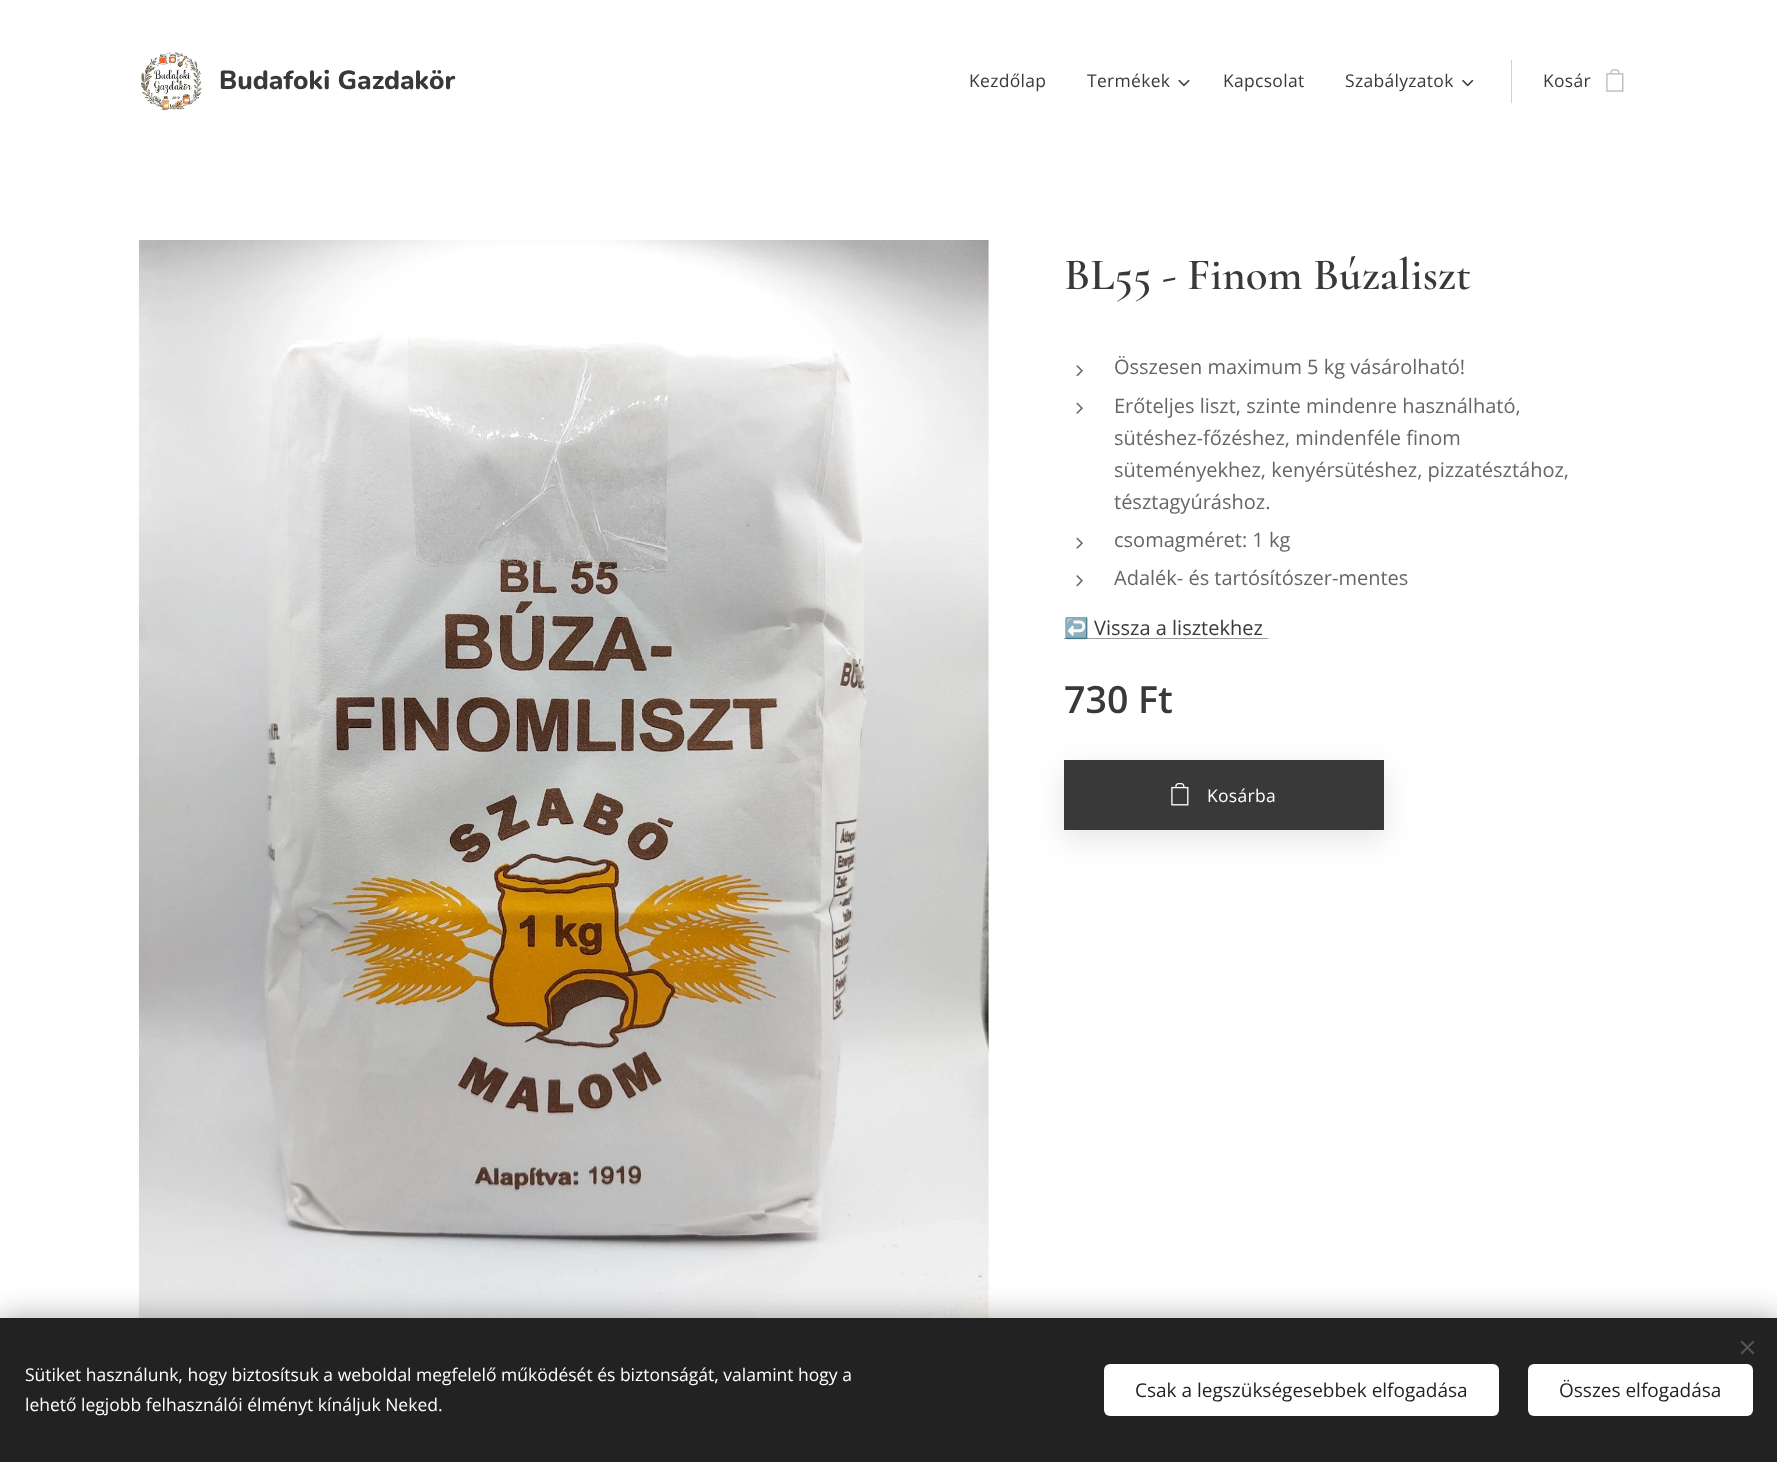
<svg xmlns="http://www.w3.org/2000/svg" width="1777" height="1462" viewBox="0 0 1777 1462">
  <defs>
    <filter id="blur1" x="-50%" y="-200%" width="200%" height="500%"><feGaussianBlur stdDeviation="15.5"/></filter>
  </defs>
  <rect width="100%" height="100%" fill="#ffffff"/>
  <image x="140" y="52" width="62" height="59" href="img1.png"/>
  <text x="219" y="89" font-family="Nunito" font-size="26.25" font-weight="800" fill="#393939">Budafoki Gazdakör</text>
  <text x="969" y="87" font-family="Open Sans" font-size="17.5" letter-spacing="0.3" fill="#393939">Kezdőlap</text>
  <text x="1087" y="87" font-family="Open Sans" font-size="17.5" letter-spacing="0.3" fill="#393939">Termékek</text>
  <image x="1178" y="79" width="12" height="8" href="img2.png"/>
  <text x="1223" y="87" font-family="Open Sans" font-size="17.5" letter-spacing="0.3" fill="#393939">Kapcsolat</text>
  <text x="1345" y="87" font-family="Open Sans" font-size="17.5" letter-spacing="0.3" fill="#393939">Szabályzatok</text>
  <image x="1462" y="79" width="12" height="8" href="img3.png"/>
  <rect x="1511" y="60" width="1" height="43" fill="#d1d1d1"/>
  <text x="1543" y="87" font-family="Open Sans" font-size="17.5" letter-spacing="0.3" fill="#393939">Kosár</text>
  <image x="1606" y="69" width="18" height="23" href="img4.png"/>
  <image x="138" y="240" width="851" height="1078" href="img5.png"/>
  <text x="1064" y="289" font-family="Cormorant" font-size="45" font-weight="600" fill="#393939">BL55 - Finom Búzaliszt</text>
  <image x="1076" y="365" width="7" height="12" href="img6.png"/>
  <text x="1114" y="374" font-family="Open Sans" font-size="20" fill="#666666">Összesen maximum 5 kg vásárolható!</text>
  <image x="1076" y="402" width="7" height="12" href="img7.png"/>
  <text x="1114" y="413" font-family="Open Sans" font-size="20" fill="#666666">Erőteljes liszt, szinte mindenre használható,</text>
  <text x="1114" y="445" font-family="Open Sans" font-size="20" fill="#666666">sütéshez-főzéshez, mindenféle finom</text>
  <text x="1114" y="477" font-family="Open Sans" font-size="20" fill="#666666">süteményekhez, kenyérsütéshez, pizzatésztához,</text>
  <text x="1114" y="509" font-family="Open Sans" font-size="20" fill="#666666">tésztagyúráshoz.</text>
  <image x="1076" y="537" width="7" height="12" href="img7.png"/>
  <text x="1114" y="547" font-family="Open Sans" font-size="20" fill="#666666">csomagméret: 1 kg</text>
  <image x="1076" y="575" width="7" height="12" href="img6.png"/>
  <text x="1114" y="585" font-family="Open Sans" font-size="20" fill="#666666">Adalék- és tartósítószer-mentes</text>
  <rect x="1064" y="638" width="204" height="1" fill="#9c9c9c"/>
  <text x="1064" y="635" font-family="Noto Color Emoji" font-size="20" fill="#393939">↩</text>
  <text x="1094" y="635" font-family="Open Sans" font-size="20" fill="#393939">Vissza a lisztekhez</text>
  <text x="1064" y="713" font-family="Open Sans" font-size="37.5" font-weight="600" fill="#393939">730 Ft</text>
  <rect x="1064" y="770" width="320" height="70" fill="#000000" fill-opacity="0.1" filter="url(#blur1)"/>
  <rect x="1064" y="760" width="320" height="70" fill="#393939"/>
  <image x="1171" y="783" width="18" height="23" href="img8.png"/>
  <text x="1207" y="802" font-family="Open Sans" font-size="17.5" letter-spacing="0.3" fill="#ffffff">Kosárba</text>
  <rect x="0" y="1318" width="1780" height="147" fill="#000000" fill-opacity="0.33" filter="url(#blur1)"/>
  <rect x="0" y="1318" width="1777" height="144" fill="#222222"/>
  <path d="M1740.5 1353L1753 1340.5L1754.5 1342L1742 1354.5Z" fill="#555555"/>
  <path d="M1742 1340.5L1754.5 1353L1753 1354.5L1740.5 1342Z" fill="#555555"/>
  <text x="25" y="1381" font-family="Open Sans" font-size="17.5" fill="#ffffff">Sütiket használunk, hogy biztosítsuk a weboldal megfelelő működését és biztonságát, valamint hogy a</text>
  <text x="25" y="1411" font-family="Open Sans" font-size="17.5" fill="#ffffff">lehető legjobb felhasználói élményt kínáljuk Neked.</text>
  <rect x="1104" y="1364" width="395" height="52" rx="6" fill="#ffffff"/>
  <text x="1135" y="1397" font-family="Open Sans" font-size="19" fill="#222222">Csak a legszükségesebbek elfogadása</text>
  <rect x="1528" y="1364" width="225" height="52" rx="6" fill="#ffffff"/>
  <text x="1559" y="1397" font-family="Open Sans" font-size="19" fill="#222222">Összes elfogadása</text>
</svg>
